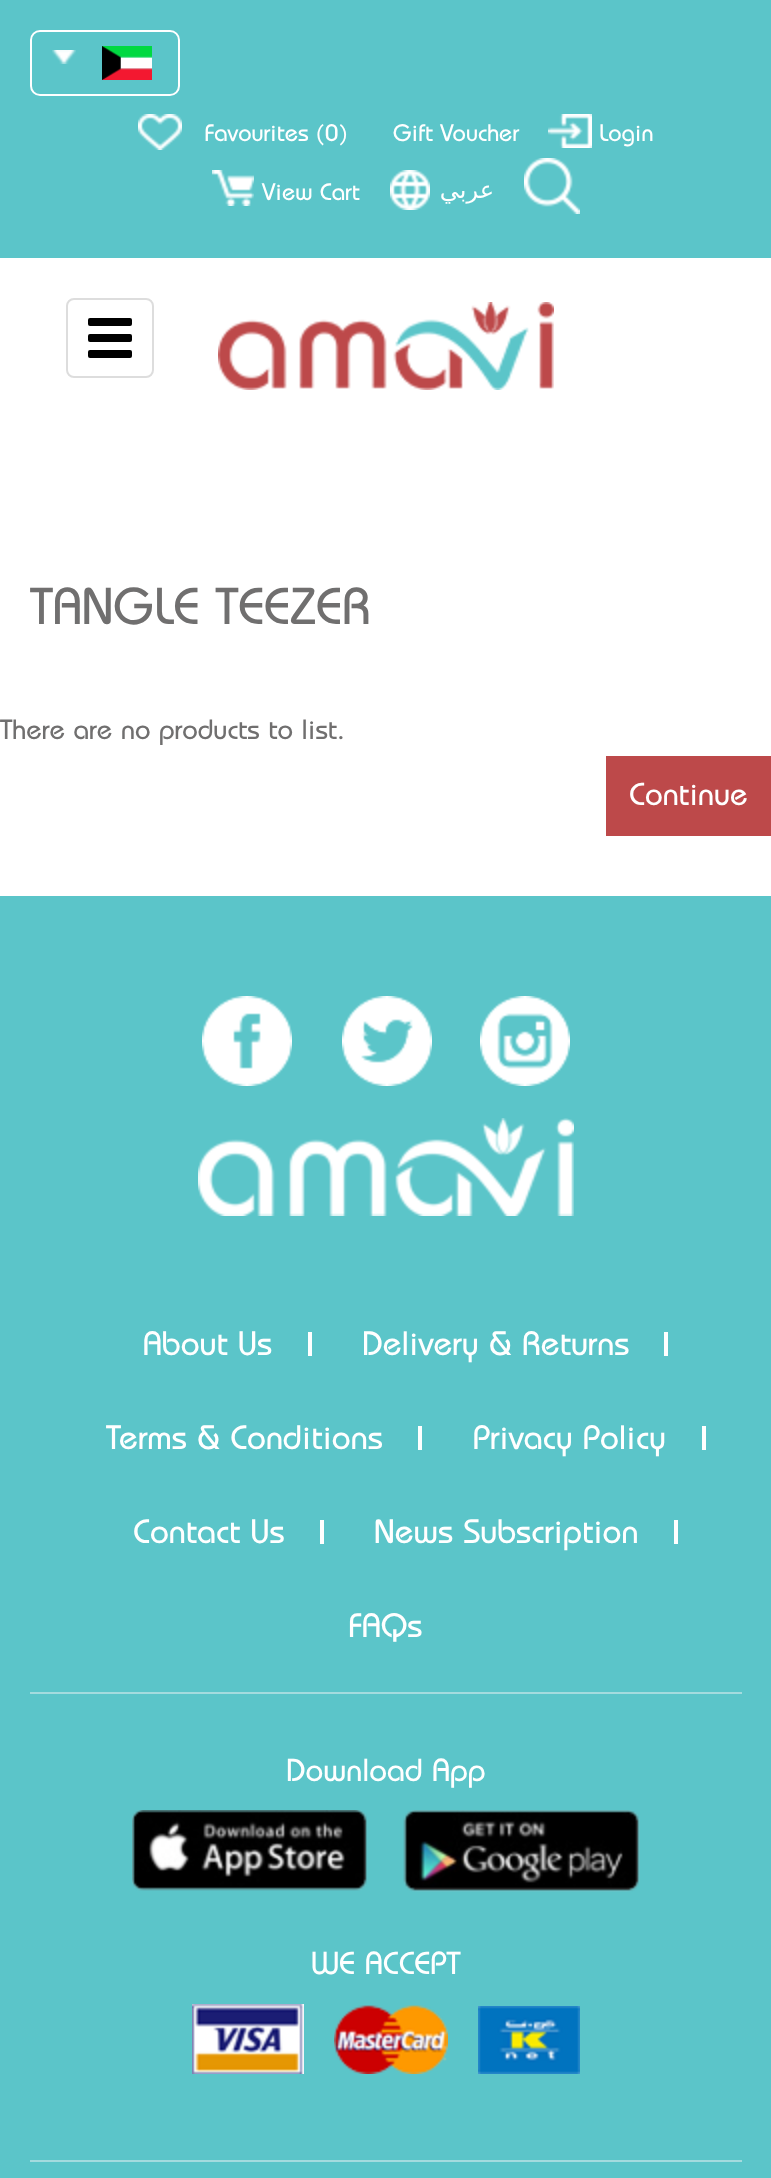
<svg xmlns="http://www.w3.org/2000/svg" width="771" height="2178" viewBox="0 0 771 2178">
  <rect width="100%" height="100%" fill="#ffffff"/>
  <rect x="0" y="0" width="771" height="258" fill="#5bc5c9"/>
  <image x="52" y="50" width="24" height="14" href="img1.png"/>
  <rect x="31" y="31" width="148" height="64" rx="9" fill="none" stroke="#ffffff" stroke-width="2"/>
  <image x="102" y="46" width="50" height="34" href="img2.png"/>
  <image x="138" y="114" width="44" height="36" href="img3.png"/>
  <text x="205" y="141" font-family="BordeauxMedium" font-size="24" font-weight="500" fill="#ffffff">Favourites (0)</text>
  <text x="393" y="141" font-family="BordeauxMedium" font-size="24" font-weight="500" fill="#ffffff">Gift Voucher</text>
  <image x="548" y="114" width="44" height="34" href="img4.png"/>
  <text x="599" y="141" font-family="BordeauxMedium" font-size="24" font-weight="500" fill="#ffffff">Login</text>
  <image x="212" y="170" width="42" height="36" href="img5.png"/>
  <text x="262" y="200" font-family="BordeauxMedium" font-size="24" font-weight="500" fill="#ffffff">View Cart</text>
  <image x="390" y="170" width="40" height="40" href="img6.png"/>
  <text x="494" y="198" font-family="DejaVu Sans" font-size="24" direction="rtl" fill="#ffffff">عربي</text>
  <image x="524" y="158" width="56" height="56" href="img7.png"/>
  <rect x="67" y="299" width="86" height="78" rx="7" fill="none" stroke="#dddddd" stroke-width="2"/>
  <rect x="88" y="318" width="44" height="8" rx="2" fill="#000000"/>
  <rect x="88" y="334" width="44" height="8" rx="2" fill="#000000"/>
  <rect x="88" y="350" width="44" height="8" rx="2" fill="#000000"/>
  <image x="218" y="302" width="336" height="88" href="img8.png"/>
  <text x="30" y="624" font-family="BordeauxMedium" font-size="52" font-weight="500" fill="#706f6f">TANGLE TEEZER</text>
  <text x="0" y="739" font-family="BordeauxMedium" font-size="28" font-weight="500" fill="#706f6f">There are no products to list.</text>
  <rect x="606" y="756" width="165" height="80" fill="#bd494a"/>
  <text x="629" y="805" font-family="BordeauxMedium" font-size="32" font-weight="500" fill="#ffffff">Continue</text>
  <rect x="0" y="896" width="771" height="1282" fill="#5bc5c9"/>
  <image x="202" y="996" width="90" height="90" href="img9.png"/>
  <image x="342" y="996" width="90" height="90" href="img10.png"/>
  <image x="480" y="996" width="90" height="90" href="img11.png"/>
  <image x="198" y="1118" width="376" height="98" href="img12.png"/>
  <text x="143" y="1355" font-family="BordeauxMedium" font-size="34" font-weight="500" fill="#ffffff">About Us</text>
  <rect x="308" y="1332" width="4" height="24" fill="#ffffff"/>
  <text x="362" y="1355" font-family="BordeauxMedium" font-size="34" font-weight="500" fill="#ffffff">Delivery &amp; Returns</text>
  <rect x="664" y="1332" width="4" height="24" fill="#ffffff"/>
  <text x="106" y="1449" font-family="BordeauxMedium" font-size="34" font-weight="500" fill="#ffffff">Terms &amp; Conditions</text>
  <rect x="418" y="1426" width="4" height="24" fill="#ffffff"/>
  <text x="473" y="1449" font-family="BordeauxMedium" font-size="34" font-weight="500" fill="#ffffff">Privacy Policy</text>
  <rect x="702" y="1426" width="4" height="24" fill="#ffffff"/>
  <text x="133" y="1543" font-family="BordeauxMedium" font-size="34" font-weight="500" fill="#ffffff">Contact Us</text>
  <rect x="320" y="1520" width="4" height="24" fill="#ffffff"/>
  <text x="374" y="1543" font-family="BordeauxMedium" font-size="34" font-weight="500" fill="#ffffff">News Subscription</text>
  <rect x="674" y="1520" width="4" height="24" fill="#ffffff"/>
  <text x="349" y="1637" font-family="BordeauxMedium" font-size="34" font-weight="500" fill="#ffffff">FAQs</text>
  <rect x="30" y="1692" width="712" height="2" fill="#a4dbde"/>
  <rect x="30" y="2160" width="712" height="2" fill="#a4dbde"/>
  <text x="286" y="1781" font-family="BordeauxMedium" font-size="32" font-weight="500" fill="#ffffff">Download App</text>
  <image x="132" y="1810" width="236" height="81" href="img13.png"/>
  <image x="403" y="1810" width="237" height="82" href="img14.png"/>
  <text x="311" y="1974" font-family="BordeauxMedium" font-size="32" font-weight="500" fill="#ffffff">WE ACCEPT</text>
  <image x="192" y="2004" width="112" height="70" href="img15.png"/>
  <image x="334" y="2005" width="114" height="69" href="img16.png"/>
  <image x="478" y="2006" width="102" height="68" href="img17.png"/>
</svg>
